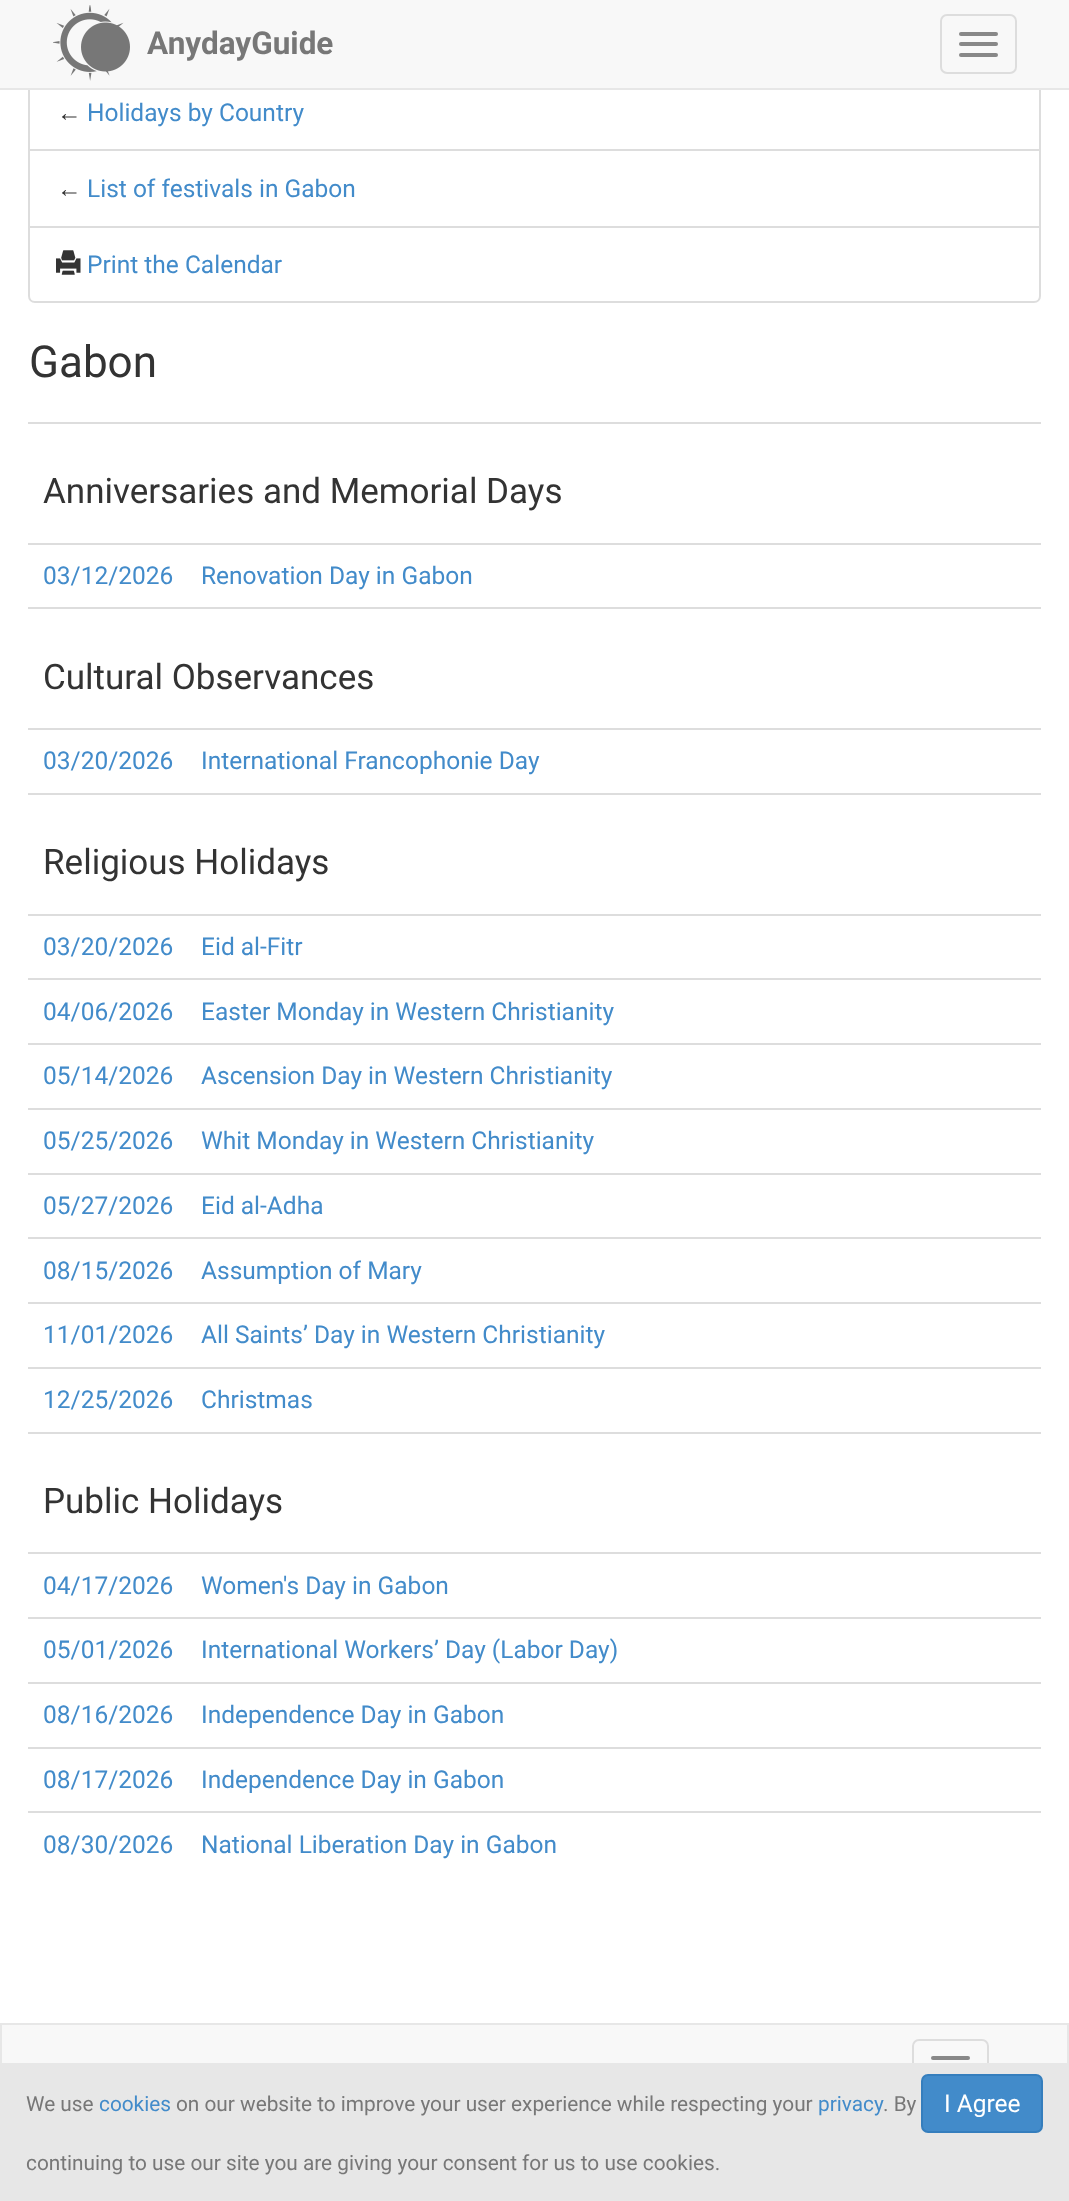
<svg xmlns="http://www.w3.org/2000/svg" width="1069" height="2201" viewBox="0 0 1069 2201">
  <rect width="100%" height="100%" fill="#ffffff"/>
  <rect x="29" y="75" width="1011" height="75" fill="none" stroke="#dddddd" stroke-width="2"/>
  <rect x="0" y="0" width="1069" height="88" fill="#f8f8f8"/>
  <rect x="0" y="88" width="1069" height="2" fill="#e7e7e7"/>
  <image x="53" y="5" width="77" height="76" href="img1.png"/>
  <text x="147" y="54" font-family="Roboto" font-size="31.5" font-weight="bold" fill="#777777">AnydayGuide</text>
  <rect x="941" y="15" width="75" height="58" rx="6" fill="none" stroke="#dddddd" stroke-width="2"/>
  <rect x="959" y="32" width="39" height="4" rx="2" fill="#888888"/>
  <rect x="959" y="42" width="39" height="4" rx="2" fill="#888888"/>
  <rect x="959" y="53" width="39" height="4" rx="2" fill="#888888"/>
  <text x="57" y="121" font-family="Liberation Sans" font-size="24.5" fill="#333333">←</text>
  <text x="87" y="121" font-family="Roboto" font-size="24.5" fill="#428bca">Holidays by Country</text>
  <rect x="29" y="150" width="1011" height="77" fill="none" stroke="#dddddd" stroke-width="2"/>
  <text x="57" y="197" font-family="Liberation Sans" font-size="24.5" fill="#333333">←</text>
  <text x="87" y="197" font-family="Roboto" font-size="24.5" fill="#428bca">List of festivals in Gabon</text>
  <path d="M29 227H1040V296C1040 299.5 1037.5 302 1034 302H35C31.5 302 29 299.5 29 296Z" fill="#ffffff" stroke="#dddddd" stroke-width="2"/>
  <image x="56" y="250" width="25" height="25" href="img2.png"/>
  <text x="87" y="273" font-family="Roboto" font-size="24.5" fill="#428bca">Print the Calendar</text>
  <text x="29" y="377" font-family="Roboto" font-size="44" fill="#333333">Gabon</text>
  <rect x="28" y="422" width="1013" height="2" fill="#dddddd"/>
  <text x="43" y="503" font-family="Roboto" font-size="35" fill="#333333">Anniversaries and Memorial Days</text>
  <text x="43" y="584" font-family="Roboto" font-size="24.5" fill="#428bca">03/12/2026</text>
  <rect x="28" y="543" width="1013" height="2" fill="#dddddd"/>
  <text x="201" y="584" font-family="Roboto" font-size="24.5" fill="#428bca">Renovation Day in Gabon</text>
  <rect x="28" y="607" width="1013" height="2" fill="#dddddd"/>
  <text x="43" y="689" font-family="Roboto" font-size="35" fill="#333333">Cultural Observances</text>
  <text x="43" y="769" font-family="Roboto" font-size="24.5" fill="#428bca">03/20/2026</text>
  <rect x="28" y="728" width="1013" height="2" fill="#dddddd"/>
  <text x="201" y="769" font-family="Roboto" font-size="24.5" fill="#428bca">International Francophonie Day</text>
  <rect x="28" y="793" width="1013" height="2" fill="#dddddd"/>
  <text x="43" y="874" font-family="Roboto" font-size="35" fill="#333333">Religious Holidays</text>
  <text x="43" y="955" font-family="Roboto" font-size="24.5" fill="#428bca">03/20/2026</text>
  <rect x="28" y="914" width="1013" height="2" fill="#dddddd"/>
  <text x="201" y="955" font-family="Roboto" font-size="24.5" fill="#428bca">Eid al-Fitr</text>
  <text x="43" y="1020" font-family="Roboto" font-size="24.5" fill="#428bca">04/06/2026</text>
  <rect x="28" y="978" width="1013" height="2" fill="#dddddd"/>
  <text x="201" y="1020" font-family="Roboto" font-size="24.5" fill="#428bca">Easter Monday in Western Christianity</text>
  <text x="43" y="1084" font-family="Roboto" font-size="24.5" fill="#428bca">05/14/2026</text>
  <rect x="28" y="1043" width="1013" height="2" fill="#dddddd"/>
  <text x="201" y="1084" font-family="Roboto" font-size="24.5" fill="#428bca">Ascension Day in Western Christianity</text>
  <text x="43" y="1149" font-family="Roboto" font-size="24.5" fill="#428bca">05/25/2026</text>
  <rect x="28" y="1108" width="1013" height="2" fill="#dddddd"/>
  <text x="201" y="1149" font-family="Roboto" font-size="24.5" fill="#428bca">Whit Monday in Western Christianity</text>
  <text x="43" y="1214" font-family="Roboto" font-size="24.5" fill="#428bca">05/27/2026</text>
  <rect x="28" y="1173" width="1013" height="2" fill="#dddddd"/>
  <text x="201" y="1214" font-family="Roboto" font-size="24.5" fill="#428bca">Eid al-Adha</text>
  <text x="43" y="1279" font-family="Roboto" font-size="24.5" fill="#428bca">08/15/2026</text>
  <rect x="28" y="1237" width="1013" height="2" fill="#dddddd"/>
  <text x="201" y="1279" font-family="Roboto" font-size="24.5" fill="#428bca">Assumption of Mary</text>
  <text x="43" y="1343" font-family="Roboto" font-size="24.5" fill="#428bca">11/01/2026</text>
  <rect x="28" y="1302" width="1013" height="2" fill="#dddddd"/>
  <text x="201" y="1343" font-family="Roboto" font-size="24.5" fill="#428bca">All Saints’ Day in Western Christianity</text>
  <text x="43" y="1408" font-family="Roboto" font-size="24.5" fill="#428bca">12/25/2026</text>
  <rect x="28" y="1367" width="1013" height="2" fill="#dddddd"/>
  <text x="201" y="1408" font-family="Roboto" font-size="24.5" fill="#428bca">Christmas</text>
  <rect x="28" y="1432" width="1013" height="2" fill="#dddddd"/>
  <text x="43" y="1513" font-family="Roboto" font-size="35" fill="#333333">Public Holidays</text>
  <text x="43" y="1594" font-family="Roboto" font-size="24.5" fill="#428bca">04/17/2026</text>
  <rect x="28" y="1552" width="1013" height="2" fill="#dddddd"/>
  <text x="201" y="1594" font-family="Roboto" font-size="24.5" fill="#428bca">Women's Day in Gabon</text>
  <text x="43" y="1658" font-family="Roboto" font-size="24.5" fill="#428bca">05/01/2026</text>
  <rect x="28" y="1617" width="1013" height="2" fill="#dddddd"/>
  <text x="201" y="1658" font-family="Roboto" font-size="24.5" fill="#428bca">International Workers’ Day (Labor Day)</text>
  <text x="43" y="1723" font-family="Roboto" font-size="24.5" fill="#428bca">08/16/2026</text>
  <rect x="28" y="1682" width="1013" height="2" fill="#dddddd"/>
  <text x="201" y="1723" font-family="Roboto" font-size="24.5" fill="#428bca">Independence Day in Gabon</text>
  <text x="43" y="1788" font-family="Roboto" font-size="24.5" fill="#428bca">08/17/2026</text>
  <rect x="28" y="1747" width="1013" height="2" fill="#dddddd"/>
  <text x="201" y="1788" font-family="Roboto" font-size="24.5" fill="#428bca">Independence Day in Gabon</text>
  <text x="43" y="1853" font-family="Roboto" font-size="24.5" fill="#428bca">08/30/2026</text>
  <rect x="28" y="1811" width="1013" height="2" fill="#dddddd"/>
  <text x="201" y="1853" font-family="Roboto" font-size="24.5" fill="#428bca">National Liberation Day in Gabon</text>
  <rect x="2" y="2025" width="1065" height="38" fill="#f8f8f8"/>
  <rect x="1" y="2024" width="1067" height="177" fill="none" stroke="#e7e7e7" stroke-width="2"/>
  <rect x="913" y="2040" width="75" height="57" rx="6" fill="none" stroke="#dddddd" stroke-width="2"/>
  <rect x="931" y="2056" width="39" height="4" rx="2" fill="#888888"/>
  <rect x="2" y="2065" width="1065" height="135" fill="#e7e7e7"/>
  <rect x="0" y="2063" width="1069" height="2" fill="#e7e7e7"/>
  <text x="26" y="2111" font-family="Roboto" font-size="20.8" fill="#777777">We use</text>
  <text x="99" y="2111" font-family="Roboto" font-size="20.8" fill="#428bca">cookies</text>
  <text x="176" y="2111" font-family="Roboto" font-size="20.8" fill="#777777">on our website to improve your user experience while respecting your</text>
  <text x="818" y="2111" font-family="Roboto" font-size="20.8" fill="#428bca">privacy</text>
  <text x="883" y="2111" font-family="Roboto" font-size="20.8" fill="#777777">. By</text>
  <text x="26" y="2170" font-family="Roboto" font-size="20.8" fill="#777777">continuing to use our site you are giving your consent for us to use cookies.</text>
  <rect x="922" y="2075" width="120" height="57" rx="6" fill="#428bca" stroke="#357ebd" stroke-width="2"/>
  <text x="944" y="2112" font-family="Roboto" font-size="24.5" fill="#ffffff">I Agree</text>
</svg>
